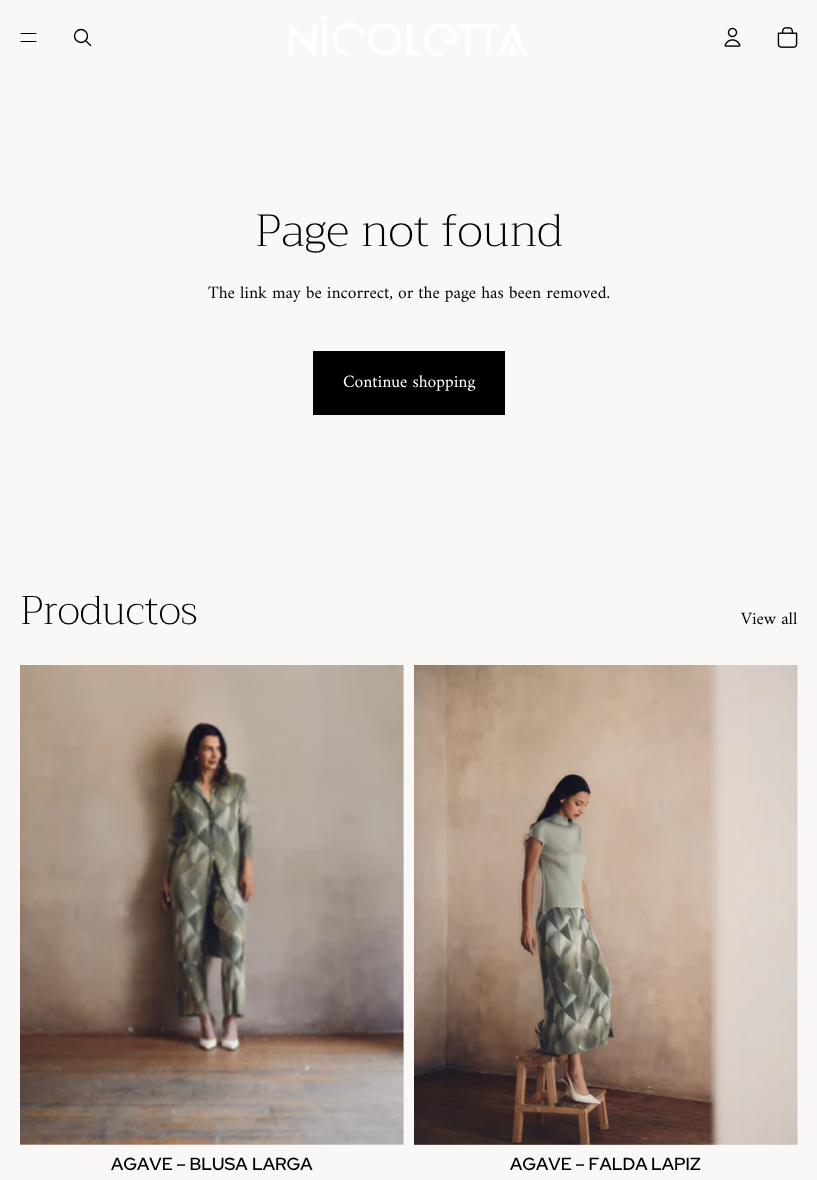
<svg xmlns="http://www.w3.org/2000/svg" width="817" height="1180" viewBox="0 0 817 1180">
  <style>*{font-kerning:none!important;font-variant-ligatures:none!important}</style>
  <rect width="100%" height="100%" fill="#f9f8f6"/>
  <path d="M21 33.5H36M21 41.5H36" fill="none" stroke="#000000" stroke-width="1.2" stroke-linecap="round"/>
  <circle cx="81" cy="36" r="6.5" fill="none" stroke="#000000" stroke-width="1.4"/>
  <path d="M86 41L90.5 45.5" fill="none" stroke="#000000" stroke-width="1.4" stroke-linecap="round" stroke-linejoin="round"/>
  <image x="289" y="15" width="239" height="42" href="img1.png"/>
  <image x="724" y="27" width="17" height="20" href="img2.png"/>
  <image x="777" y="27" width="21" height="21" href="img3.png"/>
  <text x="255" y="246" font-family="Trirong" font-size="45" font-weight="300" fill="#000000">Page not found</text>
  <text x="208" y="298" font-family="Amiri" font-size="17.5" fill="#000000">The link may be incorrect, or the page has been removed.</text>
  <rect x="313" y="351" width="192" height="64" fill="#000000"/>
  <text x="343" y="387" font-family="Amiri" font-size="17.5" fill="#ffffff">Continue shopping</text>
  <text x="20" y="624" font-family="Trirong" font-size="40" font-weight="300" fill="#000000">Productos</text>
  <text x="741" y="624" font-family="Amiri" font-size="17.5" fill="#000000">View all</text>
  <image x="20" y="665" width="384" height="480" href="img4.png"/>
  <text x="111" y="1170" font-family="Red Hat Display" font-size="17.5" font-weight="600" fill="#000000">AGAVE – BLUSA</text>
  <text x="252" y="1170" font-family="Red Hat Display" font-size="17.5" font-weight="600" fill="#000000">LARGA</text>
  <image x="414" y="665" width="384" height="480" href="img5.png"/>
  <text x="510" y="1170" font-family="Red Hat Display" font-size="17.5" font-weight="600" fill="#000000">AGAVE – FALDA</text>
  <text x="651" y="1170" font-family="Red Hat Display" font-size="17.5" font-weight="600" fill="#000000">LAPIZ</text>
</svg>
